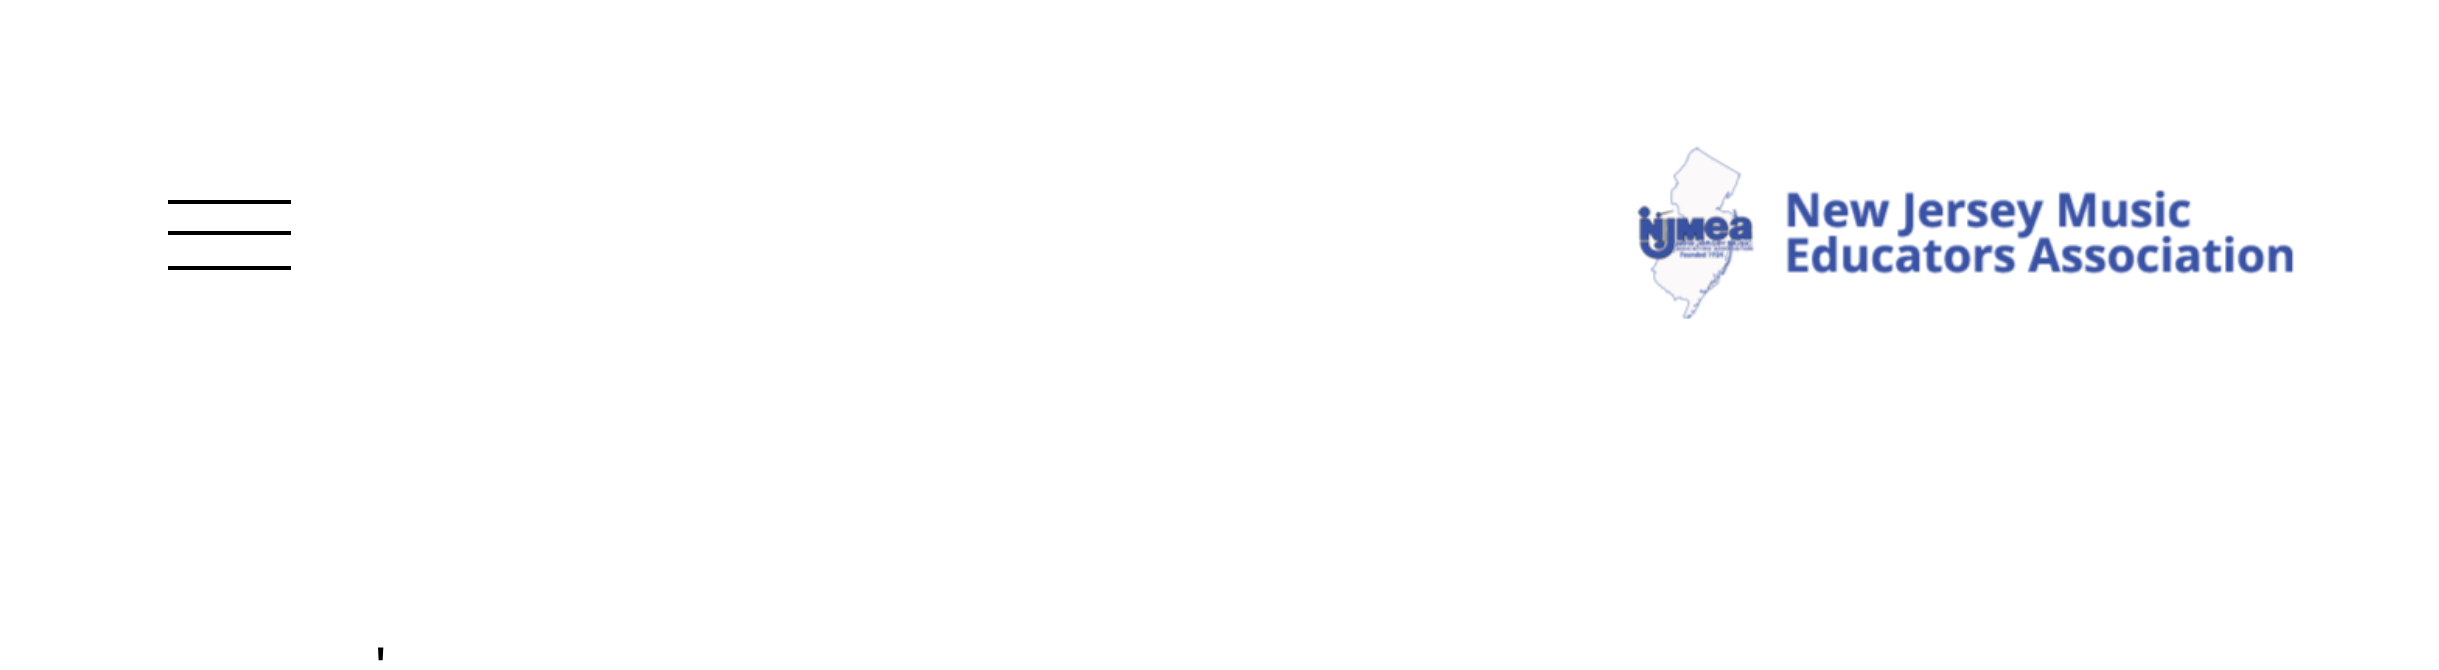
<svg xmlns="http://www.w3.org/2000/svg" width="2439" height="670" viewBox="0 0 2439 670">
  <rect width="100%" height="100%" fill="#ffffff"/>
  <rect x="168" y="200" width="123" height="4" fill="#000000"/>
  <rect x="168" y="231" width="123" height="4" fill="#000000"/>
  <rect x="168" y="266" width="123" height="4" fill="#000000"/>
  <image x="1637" y="146" width="657" height="173" href="img1.png"/>
  <text x="375" y="688" font-family="Liberation Sans" font-size="59" fill="#000000">'</text>
</svg>
